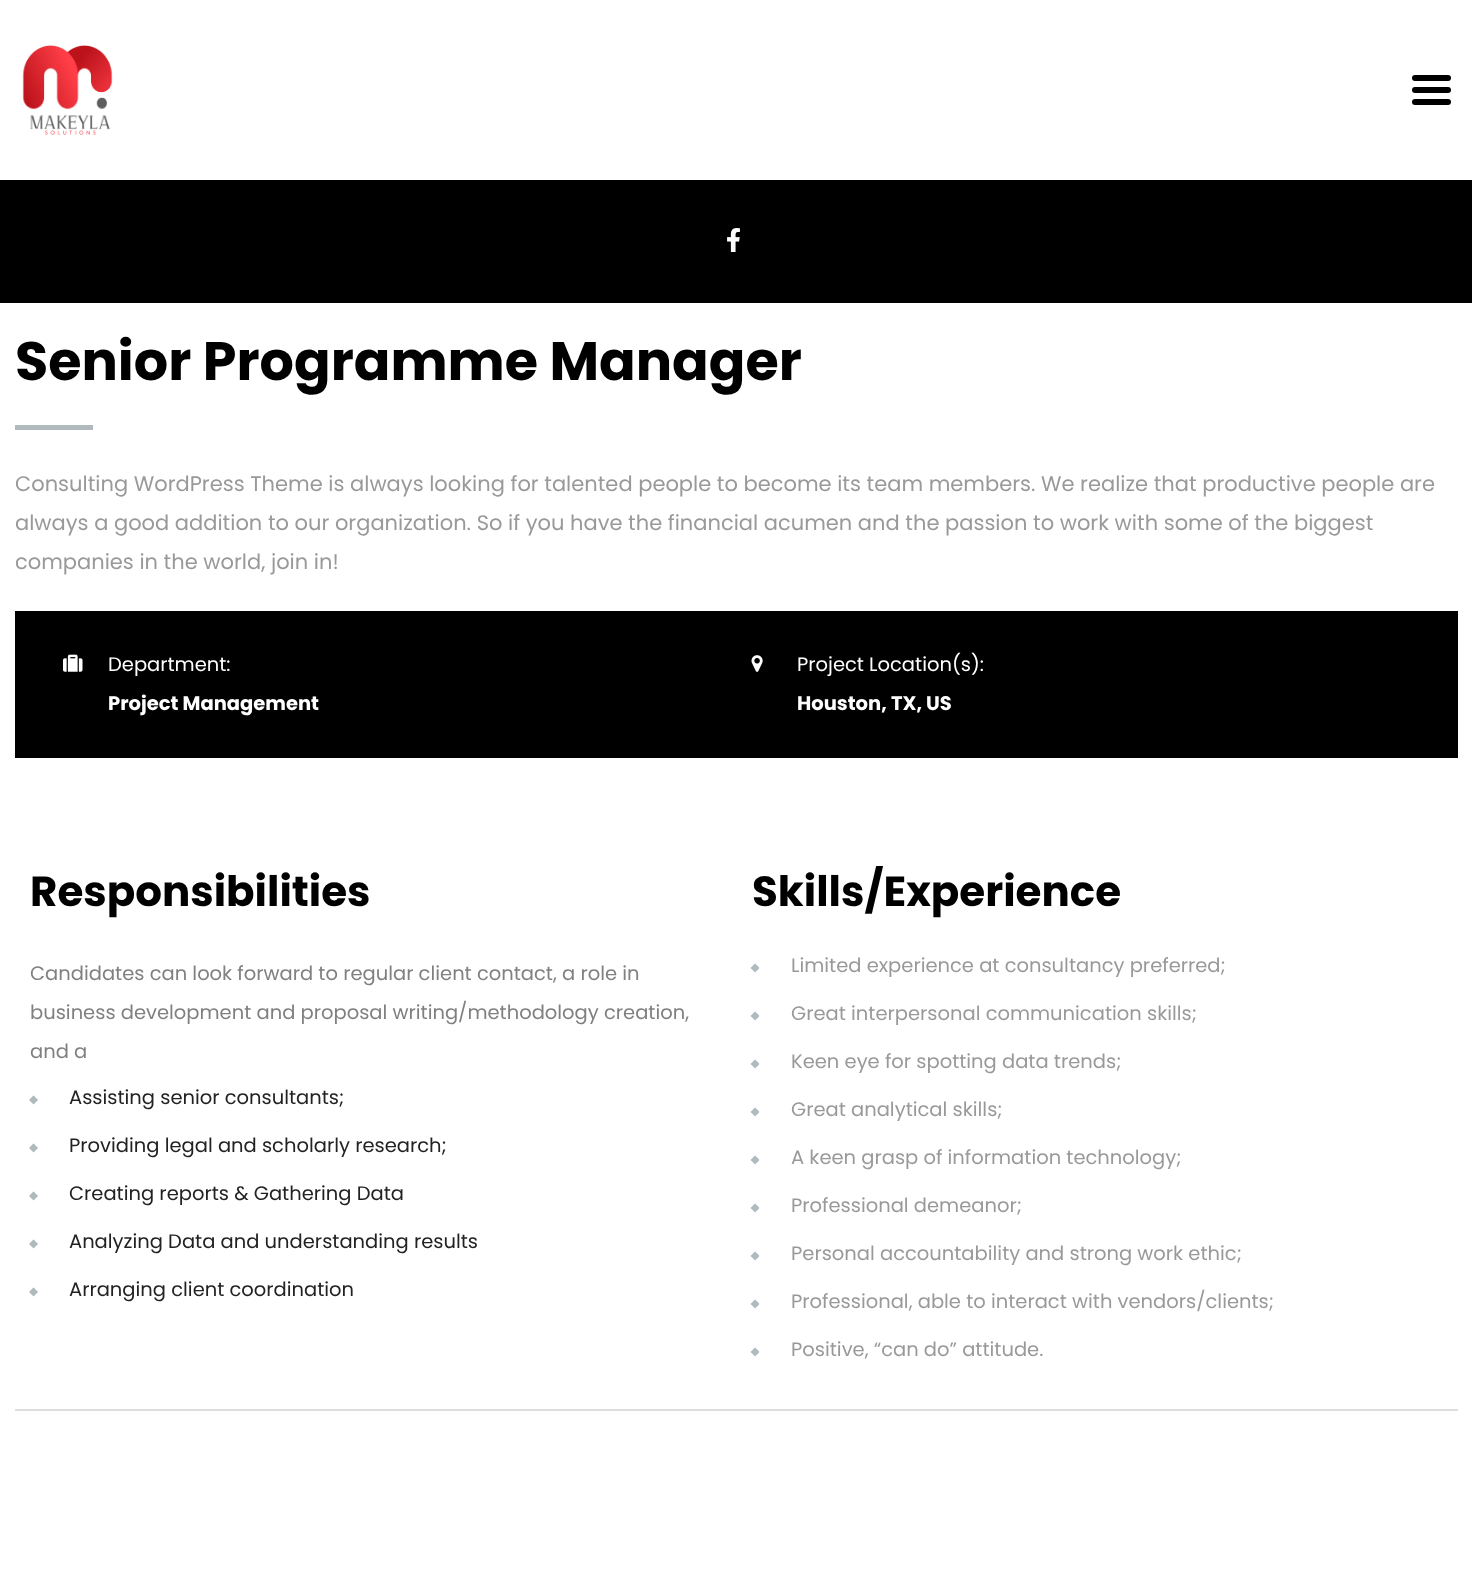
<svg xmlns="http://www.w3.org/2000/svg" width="1472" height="1573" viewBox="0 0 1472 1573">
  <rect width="100%" height="100%" fill="#ffffff"/>
  <rect x="0" y="180" width="1472" height="123" fill="#000000"/>
  <image x="22" y="45" width="91" height="90" href="img1.png"/>
  <rect x="1412" y="87" width="39" height="6" rx="3" fill="#000000"/>
  <rect x="1412" y="75" width="39" height="6" rx="3" fill="#000000"/>
  <rect x="1412" y="99" width="39" height="6" rx="3" fill="#000000"/>
  <image x="727" y="228" width="13" height="24" href="img2.png"/>
  <text x="15" y="380" font-family="Poppins" font-size="54" font-weight="bold" fill="#000000">Senior Programme Manager</text>
  <rect x="15" y="425" width="78" height="5" fill="#b0babd"/>
  <text x="15" y="491" font-family="Poppins" font-size="21" fill="#999999">Consulting WordPress Theme is always looking for talented people to become its team members. We realize that productive people are</text>
  <text x="15" y="530" font-family="Poppins" font-size="21" fill="#999999">always a good addition to our organization. So if you have the financial acumen and the passion to work with some of the biggest</text>
  <text x="15" y="569" font-family="Poppins" font-size="21" fill="#999999">companies in the world, join in!</text>
  <rect x="15" y="611" width="1443" height="147" fill="#000000"/>
  <image x="63" y="654" width="20" height="18" href="img3.png"/>
  <text x="108" y="671" font-family="Poppins" font-size="19.5" fill="#ffffff">Department:</text>
  <text x="108" y="710" font-family="Poppins" font-size="19.5" font-weight="bold" fill="#ffffff">Project Management</text>
  <image x="751" y="655" width="12" height="17" href="img4.png"/>
  <text x="797" y="671" font-family="Poppins" font-size="19.5" fill="#ffffff">Project Location(s):</text>
  <text x="797" y="710" font-family="Poppins" font-size="19.5" font-weight="bold" fill="#ffffff">Houston, TX, US</text>
  <text x="30" y="906" font-family="Poppins" font-size="42" font-weight="bold" fill="#000000">Responsibilities</text>
  <text x="30" y="980" font-family="Poppins" font-size="19.5" fill="#808080">Candidates can look forward to regular client contact, a role in</text>
  <text x="30" y="1019" font-family="Poppins" font-size="19.5" fill="#808080">business development and proposal writing/methodology creation,</text>
  <text x="30" y="1058" font-family="Poppins" font-size="19.5" fill="#808080">and a</text>
  <image x="29" y="1095" width="9" height="10" href="img5.png"/>
  <text x="69" y="1104" font-family="Poppins" font-size="19.5" fill="#222222">Assisting senior consultants;</text>
  <image x="29" y="1143" width="9" height="10" href="img5.png"/>
  <text x="69" y="1152" font-family="Poppins" font-size="19.5" fill="#222222">Providing legal and scholarly research;</text>
  <image x="29" y="1191" width="9" height="10" href="img5.png"/>
  <text x="69" y="1200" font-family="Poppins" font-size="19.5" fill="#222222">Creating reports &amp; Gathering Data</text>
  <image x="29" y="1239" width="9" height="10" href="img5.png"/>
  <text x="69" y="1248" font-family="Poppins" font-size="19.5" fill="#222222">Analyzing Data and understanding results</text>
  <image x="29" y="1287" width="9" height="10" href="img5.png"/>
  <text x="69" y="1296" font-family="Poppins" font-size="19.5" fill="#222222">Arranging client coordination</text>
  <text x="752" y="906" font-family="Poppins" font-size="42" font-weight="bold" fill="#000000">Skills/Experience</text>
  <image x="750" y="963" width="10" height="10" href="img6.png"/>
  <text x="791" y="972" font-family="Poppins" font-size="19.5" fill="#999999">Limited experience at consultancy preferred;</text>
  <image x="750" y="1011" width="10" height="10" href="img6.png"/>
  <text x="791" y="1020" font-family="Poppins" font-size="19.5" fill="#999999">Great interpersonal communication skills;</text>
  <image x="750" y="1059" width="10" height="10" href="img6.png"/>
  <text x="791" y="1068" font-family="Poppins" font-size="19.5" fill="#999999">Keen eye for spotting data trends;</text>
  <image x="750" y="1107" width="10" height="10" href="img6.png"/>
  <text x="791" y="1116" font-family="Poppins" font-size="19.5" fill="#999999">Great analytical skills;</text>
  <image x="750" y="1155" width="10" height="10" href="img6.png"/>
  <text x="791" y="1164" font-family="Poppins" font-size="19.5" fill="#999999">A keen grasp of information technology;</text>
  <image x="750" y="1203" width="10" height="10" href="img6.png"/>
  <text x="791" y="1212" font-family="Poppins" font-size="19.5" fill="#999999">Professional demeanor;</text>
  <image x="750" y="1251" width="10" height="10" href="img6.png"/>
  <text x="791" y="1260" font-family="Poppins" font-size="19.5" fill="#999999">Personal accountability and strong work ethic;</text>
  <image x="750" y="1299" width="10" height="10" href="img6.png"/>
  <text x="791" y="1308" font-family="Poppins" font-size="19.5" fill="#999999">Professional, able to interact with vendors/clients;</text>
  <image x="750" y="1347" width="10" height="10" href="img6.png"/>
  <text x="791" y="1356" font-family="Poppins" font-size="19.5" fill="#999999">Positive, “can do” attitude.</text>
  <rect x="15" y="1409" width="1443" height="2" fill="#dddddd"/>
</svg>
